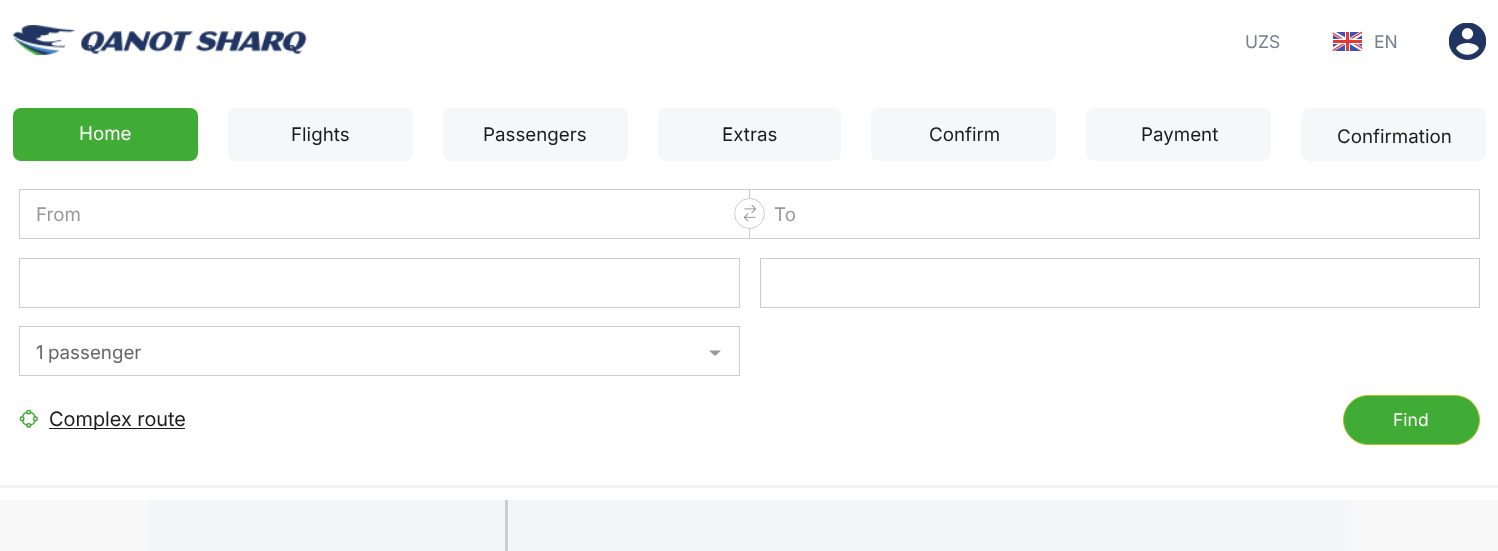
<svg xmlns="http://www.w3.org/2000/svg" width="1498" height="551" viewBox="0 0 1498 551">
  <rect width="100%" height="100%" fill="#ffffff"/>
  <image x="12" y="25" width="295" height="30" href="img1.png"/>
  <text x="1245" y="48" font-family="Inter" font-size="17.5" fill="#777e90">UZS</text>
  <image x="1332" y="31" width="31" height="20" href="img2.png"/>
  <text x="1374" y="48" font-family="Inter" font-size="17.5" fill="#777e90">EN</text>
  <image x="1449" y="23" width="37" height="37" href="img3.png"/>
  <rect x="13" y="108" width="185" height="53" rx="8" fill="#40ab35"/>
  <text x="79" y="140" font-family="Inter" font-size="18.75" fill="#ffffff">Home</text>
  <rect x="228" y="108" width="185" height="53" rx="8" fill="#f5f7f9"/>
  <text x="291" y="141" font-family="Inter" font-size="18.75" fill="#1c1c1c">Flights</text>
  <rect x="443" y="108" width="185" height="53" rx="8" fill="#f5f7f9"/>
  <text x="483" y="141" font-family="Inter" font-size="18.75" fill="#1c1c1c">Passengers</text>
  <rect x="658" y="108" width="183" height="53" rx="8" fill="#f5f7f9"/>
  <text x="722" y="141" font-family="Inter" font-size="18.75" fill="#1c1c1c">Extras</text>
  <rect x="871" y="108" width="185" height="53" rx="8" fill="#f5f7f9"/>
  <text x="929" y="141" font-family="Inter" font-size="18.75" fill="#1c1c1c">Confirm</text>
  <rect x="1086" y="108" width="185" height="53" rx="8" fill="#f5f7f9"/>
  <text x="1141" y="141" font-family="Inter" font-size="18.75" fill="#1c1c1c">Payment</text>
  <rect x="1301" y="108" width="185" height="53" rx="8" fill="#f5f7f9"/>
  <text x="1337" y="143" font-family="Inter" font-size="18.75" fill="#1c1c1c">Confirmation</text>
  <rect x="0" y="485" width="1498" height="3" fill="#f2f2f2"/>
  <rect x="19.5" y="189.5" width="730" height="49" fill="none" stroke="#cccccc"/>
  <text x="36" y="221" font-family="Inter" font-size="18.75" fill="#999999">From</text>
  <circle cx="749.5" cy="213.5" r="15" fill="#ffffff" stroke="#cccccc"/>
  <image x="743" y="204" width="13" height="18" href="img4.png"/>
  <rect x="750" y="189" width="730" height="1" fill="#cccccc"/>
  <rect x="1479" y="189" width="1" height="50" fill="#cccccc"/>
  <rect x="750" y="238" width="730" height="1" fill="#cccccc"/>
  <text x="774" y="221" font-family="Inter" font-size="18.75" fill="#999999">To</text>
  <rect x="19.5" y="258.5" width="720" height="49" fill="none" stroke="#cccccc"/>
  <rect x="760.5" y="258.5" width="719" height="49" fill="none" stroke="#cccccc"/>
  <rect x="19.5" y="326.5" width="720" height="49" fill="none" stroke="#cccccc"/>
  <text x="36" y="359" word-spacing="-1" font-family="Inter" font-size="18.75" fill="#666666">1 passenger</text>
  <path d="M715 356L709 350.5H721Z" fill="#999999"/>
  <image x="19" y="409" width="19" height="19" href="img5.png"/>
  <rect x="49" y="428" width="136" height="1" fill="#1c1c1c"/>
  <text x="49" y="426" font-family="'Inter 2'" font-size="20" fill="#1c1c1c">Complex route</text>
  <rect x="1343.5" y="395.5" width="136" height="49" rx="24.5" fill="#40ab35" stroke="#b1bf23"/>
  <text x="1393" y="426" font-family="Inter" font-size="17.5" fill="#ffffff">Find</text>
  <rect x="0" y="500" width="1498" height="51" fill="#f9f9f9"/>
  <rect x="149" y="500" width="1202" height="51" fill="#f4f5f6"/>
  <rect x="505" y="500" width="3" height="51" fill="#cccccc"/>
</svg>
